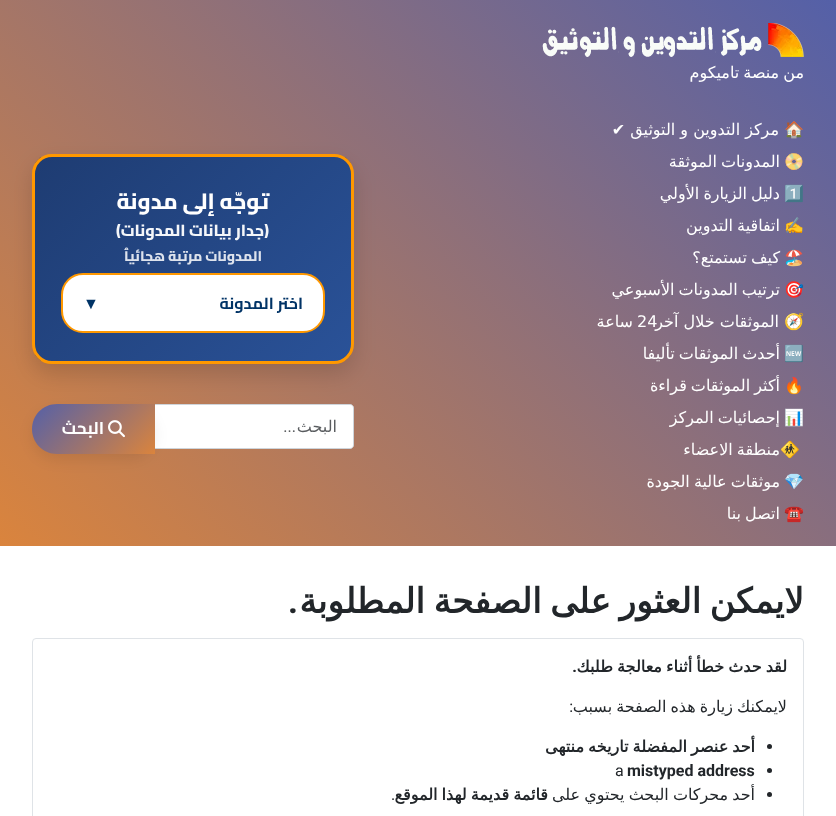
<svg xmlns="http://www.w3.org/2000/svg" width="836" height="816" viewBox="0 0 836 816">
  <defs>
    <linearGradient id="g1" gradientUnits="userSpaceOnUse" x1="764" y1="-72" x2="73" y2="619"><stop offset="0" stop-color="#5460a8"/><stop offset="1" stop-color="#da843d"/></linearGradient>
    <filter id="blur1" x="-50%" y="-200%" width="200%" height="500%"><feGaussianBlur stdDeviation="11"/></filter>
    <clipPath id="clip1"><rect x="32" y="154" width="322" height="210" rx="20"/></clipPath>
    <linearGradient id="g2" gradientUnits="userSpaceOnUse" x1="63" y1="129" x2="323" y2="389"><stop offset="0" stop-color="#1e3c72"/><stop offset="1" stop-color="#2a5298"/></linearGradient>
    <filter id="blur2" x="-50%" y="-200%" width="200%" height="500%"><feGaussianBlur stdDeviation="7"/></filter>
    <linearGradient id="g3" gradientUnits="userSpaceOnUse" x1="50" y1="386" x2="137" y2="472"><stop offset="0" stop-color="#5460a8"/><stop offset="1" stop-color="#da843d"/></linearGradient>
  </defs>
  <rect width="100%" height="100%" fill="#ffffff"/>
  <rect x="0" y="0" width="836" height="546" fill="url(#g1)"/>
  <image x="542" y="23" width="262" height="34" href="img1.png"/>
  <text x="804" y="78" word-spacing="-1" font-family="DejaVu Sans" font-size="16" direction="rtl" fill="#ffffff">من منصة تاميكوم</text>
  <text x="804" y="135" font-family="Noto Color Emoji" font-size="16" direction="rtl" fill="#ffffff">🏠</text>
  <text x="779" y="135" font-family="DejaVu Sans" font-size="16" direction="rtl" fill="#ffffff">مركز التدوين و التوثيق ✔</text>
  <text x="804" y="167" font-family="Noto Color Emoji" font-size="16" direction="rtl" fill="#ffffff">📀</text>
  <text x="780" y="167" word-spacing="-1" font-family="DejaVu Sans" font-size="16" direction="rtl" fill="#ffffff">المدونات الموثقة</text>
  <text x="784" y="199" font-family="Noto Color Emoji" font-size="16" fill="#ffffff">1️⃣</text>
  <text x="780" y="199" word-spacing="-1" font-family="DejaVu Sans" font-size="16" direction="rtl" fill="#ffffff">دليل الزيارة الأولي</text>
  <text x="804" y="231" font-family="Noto Color Emoji" font-size="16" direction="rtl" fill="#ffffff">✍️</text>
  <text x="780" y="231" word-spacing="-1" font-family="DejaVu Sans" font-size="16" direction="rtl" fill="#ffffff">اتفاقية التدوين</text>
  <text x="804" y="263" font-family="Noto Color Emoji" font-size="16" direction="rtl" fill="#ffffff">🏖️</text>
  <text x="780" y="263" word-spacing="-1" font-family="DejaVu Sans" font-size="16" direction="rtl" fill="#ffffff">كيف تستمتع؟</text>
  <text x="804" y="295" font-family="Noto Color Emoji" font-size="16" direction="rtl" fill="#ffffff">🎯</text>
  <text x="780" y="295" word-spacing="-1" font-family="DejaVu Sans" font-size="16" direction="rtl" fill="#ffffff">ترتيب المدونات الأسبوعي</text>
  <text x="804" y="327" font-family="Noto Color Emoji" font-size="16" direction="rtl" fill="#ffffff">🧭</text>
  <text x="637" y="327" font-family="DejaVu Sans" font-size="16" fill="#ffffff">24</text>
  <text x="779" y="327" font-family="DejaVu Sans" font-size="16" direction="rtl" fill="#ffffff">الموثقات خلال آخر</text>
  <text x="633" y="327" font-family="DejaVu Sans" font-size="16" direction="rtl" fill="#ffffff">ساعة</text>
  <text x="784" y="359" font-family="Noto Color Emoji" font-size="16" fill="#ffffff">🆕</text>
  <text x="780" y="359" word-spacing="-1" font-family="DejaVu Sans" font-size="16" direction="rtl" fill="#ffffff">أحدث الموثقات تأليفا</text>
  <text x="804" y="391" font-family="Noto Color Emoji" font-size="16" direction="rtl" fill="#ffffff">🔥</text>
  <text x="780" y="391" word-spacing="-1" font-family="DejaVu Sans" font-size="16" direction="rtl" fill="#ffffff">أكثر الموثقات قراءة</text>
  <text x="804" y="423" font-family="Noto Color Emoji" font-size="16" direction="rtl" fill="#ffffff">📊</text>
  <text x="780" y="423" word-spacing="-1" font-family="DejaVu Sans" font-size="16" direction="rtl" fill="#ffffff">إحصائيات المركز</text>
  <text x="780" y="455" font-family="Noto Color Emoji" font-size="16" fill="#ffffff">🚸</text>
  <text x="780" y="455" word-spacing="-1" font-family="DejaVu Sans" font-size="16" direction="rtl" fill="#ffffff">منطقة الاعضاء</text>
  <text x="804" y="487" font-family="Noto Color Emoji" font-size="16" direction="rtl" fill="#ffffff">💎</text>
  <text x="780" y="487" word-spacing="-1" font-family="DejaVu Sans" font-size="16" direction="rtl" fill="#ffffff">موثقات عالية الجودة</text>
  <text x="804" y="519" font-family="Noto Color Emoji" font-size="16" direction="rtl" fill="#ffffff">☎️</text>
  <text x="780" y="519" word-spacing="-1" font-family="DejaVu Sans" font-size="16" direction="rtl" fill="#ffffff">اتصل بنا</text>
  <rect x="32" y="164" width="322" height="210" rx="20" fill="#000000" fill-opacity="0.14" filter="url(#blur1)"/>
  <g clip-path="url(#clip1)">
    <rect x="35" y="157" width="316" height="204" fill="url(#g2)"/>
  </g>
  <rect x="33.5" y="155.5" width="319" height="207" rx="18.5" fill="none" stroke="#ff9800" stroke-width="3"/>
  <text x="269" y="209" font-family="Cairo" font-size="22" font-weight="800" direction="rtl" fill="#ffffff">توجّه إلى مدونة</text>
  <text x="269" y="236" font-family="Cairo" font-size="16" font-weight="800" direction="rtl" fill="#f4f6f9">(جدار بيانات المدونات)</text>
  <text x="262" y="261" font-family="Cairo" font-size="14" font-weight="800" direction="rtl" fill="#dee3ed">المدونات مرتبة هجائيٱ</text>
  <rect x="62" y="274" width="262" height="58" rx="21" fill="#ffffff" stroke="#ff9800" stroke-width="2"/>
  <text x="303" y="309" font-family="Cairo" font-size="16" font-weight="bold" direction="rtl" fill="#003366">اختر المدونة</text>
  <text x="83" y="309" font-family="Liberation Sans" font-size="16" font-weight="bold" fill="#003366">▼</text>
  <path d="M154.5 404.5H350C352 404.5 353.5 406 353.5 408V445C353.5 447 352 448.5 350 448.5H154.5Z" fill="#ffffff" stroke="#ced4da"/>
  <text x="337" y="432" font-family="DejaVu Sans" font-size="16" direction="rtl" fill="#595c5f">البحث</text>
  <text x="296" y="432" font-family="Roboto" font-size="16" direction="rtl" fill="#595c5f">...</text>
  <rect x="32" y="410" width="123" height="50" rx="25" fill="#000000" fill-opacity="0.08" filter="url(#blur2)"/>
  <path d="M57 404H155V454H57C43 454 32 443 32 429C32 415 43 404 57 404Z" fill="url(#g3)"/>
  <image x="108" y="420" width="17" height="18" href="img2.png"/>
  <text x="104" y="434" font-family="Cairo" font-size="17" font-weight="bold" direction="rtl" fill="#ffffff">البحث</text>
  <text x="804" y="613" word-spacing="-2.5" font-family="DejaVu Sans" font-size="34.5" font-weight="bold" direction="rtl" fill="#22262a">لايمكن العثور على الصفحة المطلوبة</text>
  <text x="298" y="613" font-family="Roboto" font-size="34.5" font-weight="bold" direction="rtl" fill="#22262a">.</text>
  <rect x="32.5" y="638.5" width="771" height="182" rx="3.5" fill="none" stroke="#dfe3e7"/>
  <text x="787" y="672" word-spacing="-1" font-family="DejaVu Sans" font-size="16" font-weight="bold" direction="rtl" fill="#22262a">لقد حدث خطأ أثناء معالجة طلبك</text>
  <text x="577" y="672" font-family="Roboto" font-size="16" font-weight="bold" direction="rtl" fill="#22262a">.</text>
  <text x="787" y="712" word-spacing="-1" font-family="DejaVu Sans" font-size="16" direction="rtl" fill="#22262a">لايمكنك زيارة هذه الصفحة بسبب</text>
  <text x="573" y="712" font-family="Roboto" font-size="16" direction="rtl" fill="#22262a">:</text>
  <circle cx="769.5" cy="746.5" r="2.5" fill="#22262a"/>
  <text x="755" y="752" word-spacing="-1" font-family="DejaVu Sans" font-size="16" font-weight="bold" direction="rtl" fill="#22262a">أحد عنصر المفضلة تاريخه منتهى</text>
  <circle cx="769.5" cy="770.5" r="2.5" fill="#22262a"/>
  <text x="627" y="776" font-family="Roboto" font-size="16" font-weight="bold" fill="#22262a">mistyped address</text>
  <text x="615" y="776" font-family="Roboto" font-size="16" fill="#22262a">a</text>
  <circle cx="769.5" cy="794.5" r="2.5" fill="#22262a"/>
  <text x="755" y="800" word-spacing="-1" font-family="DejaVu Sans" font-size="16" direction="rtl" fill="#22262a">أحد محركات البحث يحتوي على</text>
  <text x="548" y="800" word-spacing="-1" font-family="DejaVu Sans" font-size="16" font-weight="bold" direction="rtl" fill="#22262a">قائمة قديمة لهذا الموقع</text>
  <text x="391" y="800" font-family="Roboto" font-size="16" fill="#22262a">.</text>
</svg>
